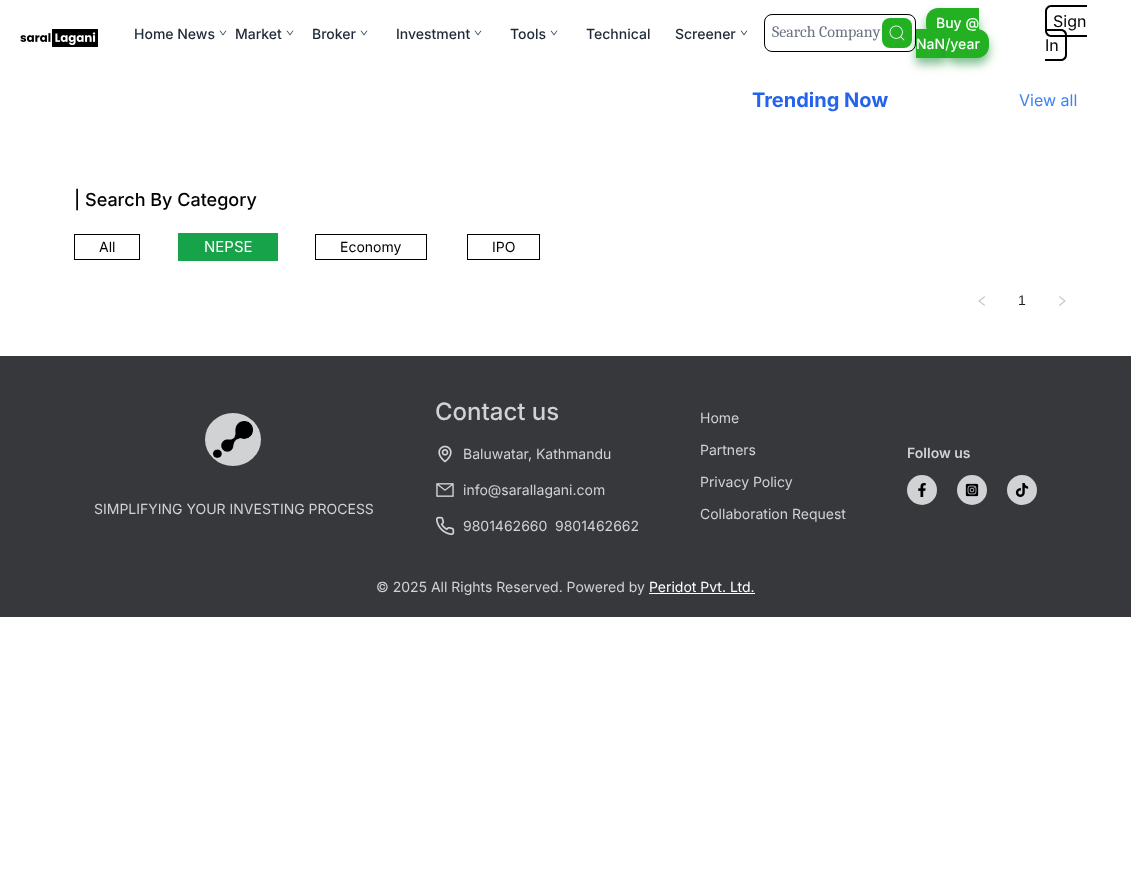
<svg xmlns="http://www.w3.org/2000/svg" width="1131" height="882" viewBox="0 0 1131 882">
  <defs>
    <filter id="blur1" x="-50%" y="-200%" width="200%" height="500%"><feGaussianBlur stdDeviation="5"/></filter>
    <clipPath id="clip1"><rect x="772" y="23" width="124" height="18"/></clipPath>
  </defs>
  <rect width="100%" height="100%" fill="#ffffff"/>
  <image x="20" y="29" width="78" height="18" href="img1.png"/>
  <text x="134" y="39" font-family="Inter" font-size="14" font-weight="500" fill="#1f2937">Home News</text>
  <image x="219" y="30" width="8" height="6" href="img2.png"/>
  <text x="235" y="39" font-family="Inter" font-size="14" font-weight="500" fill="#1f2937">Market</text>
  <image x="286" y="30" width="8" height="6" href="img2.png"/>
  <text x="312" y="39" font-family="Inter" font-size="14" font-weight="500" fill="#1f2937">Broker</text>
  <image x="360" y="30" width="8" height="6" href="img2.png"/>
  <text x="396" y="39" font-family="Inter" font-size="14" font-weight="500" fill="#1f2937">Investment</text>
  <image x="474" y="30" width="8" height="6" href="img2.png"/>
  <text x="510" y="39" font-family="Inter" font-size="14" font-weight="500" fill="#1f2937">Tools</text>
  <image x="550" y="30" width="8" height="6" href="img2.png"/>
  <text x="586" y="39" font-family="Inter" font-size="14" font-weight="500" fill="#1f2937">Technical</text>
  <text x="675" y="39" font-family="Inter" font-size="14" font-weight="500" fill="#1f2937">Screener</text>
  <image x="740" y="30" width="8" height="6" href="img2.png"/>
  <rect x="926" y="14" width="53" height="29" rx="12" fill="#008026" fill-opacity="0.5" filter="url(#blur1)"/>
  <path d="M938 8H979V37H938C931.5 37 926 31.5 926 25V20C926 13.5 931.5 8 938 8Z" fill="#23b123"/>
  <rect x="916" y="35" width="29" height="29" fill="#008026" fill-opacity="0.5" filter="url(#blur1)"/>
  <rect x="764.5" y="14.5" width="151" height="37" rx="7.5" fill="none" stroke="#000000"/>
  <g clip-path="url(#clip1)">
    <text x="772" y="37" font-family="Caladea" font-size="16" fill="#6b7280">Search Company</text>
  </g>
  <rect x="882" y="18" width="30" height="30" rx="8" fill="#23b123"/>
  <image x="889" y="25" width="16" height="16" href="img3.png"/>
  <rect x="916" y="29" width="29" height="29" fill="#23b123"/>
  <rect x="945" y="35" width="44" height="29" rx="12" fill="#008026" fill-opacity="0.5" filter="url(#blur1)"/>
  <path d="M945 29H977C983.5 29 989 34.5 989 41V46C989 52.5 983.5 58 977 58H945Z" fill="#23b123"/>
  <text x="936" y="28" font-family="Inter" font-size="14" font-weight="500" fill="#ffffff">Buy @</text>
  <text x="916" y="49" font-family="Inter" font-size="14" font-weight="500" fill="#ffffff">NaN/year</text>
  <path d="M1051 5H1087V37H1051C1048 37 1045 34 1045 31V11C1045 8 1048 5 1051 5ZM1051 7H1087V35H1051C1049 35 1047 33 1047 31V11C1047 9 1049 7 1051 7Z" fill="#000000" fill-rule="evenodd"/>
  <path d="M1045 29H1061C1064.5 29 1067 31.5 1067 35V55C1067 58.5 1064.5 61 1061 61H1045ZM1045 31H1061C1063 31 1065 33 1065 35V55C1065 57 1063 59 1061 59H1045Z" fill="#000000" fill-rule="evenodd"/>
  <text x="1053" y="27" font-family="Inter" font-size="16" fill="#000000">Sign</text>
  <text x="1045" y="51" font-family="Inter" font-size="16" fill="#000000">In</text>
  <text x="752" y="107" font-family="Inter" font-size="20" font-weight="bold" fill="#2563eb">Trending Now</text>
  <text x="1019" y="106" font-family="Inter" font-size="16" fill="#3b82f6">View all</text>
  <text x="74" y="206" font-family="Inter" font-size="18" font-weight="500" fill="#000000">| Search By Category</text>
  <rect x="74.5" y="234.5" width="65" height="25" fill="none" stroke="#000000"/>
  <text x="99" y="252" font-family="Inter" font-size="14" fill="#000000">All</text>
  <rect x="178" y="233" width="100" height="28" fill="#16a34a"/>
  <text x="204" y="252" font-family="Inter" font-size="15" fill="#ffffff">NEPSE</text>
  <rect x="315.5" y="234.5" width="111" height="25" fill="none" stroke="#000000"/>
  <text x="340" y="252" font-family="Inter" font-size="14" fill="#000000">Economy</text>
  <rect x="467.5" y="234.5" width="72" height="25" fill="none" stroke="#000000"/>
  <text x="492" y="252" font-family="Inter" font-size="14" fill="#000000">IPO</text>
  <image x="978" y="296" width="7" height="10" href="img4.png"/>
  <text x="1018" y="305" font-family="Liberation Sans" font-size="14" fill="#1f1f1f">1</text>
  <image x="1059" y="296" width="7" height="10" href="img5.png"/>
  <rect x="0" y="356" width="1131" height="261" fill="#37383c"/>
  <text x="435" y="420" font-family="Inter" font-size="24" font-weight="500" fill="#d0d2d4">Contact us</text>
  <image x="438" y="445" width="14" height="18" href="img6.png"/>
  <text x="463" y="459" font-family="Inter" font-size="14" fill="#d0d2d4">Baluwatar, Kathmandu</text>
  <image x="436" y="483" width="18" height="14" href="img7.png"/>
  <text x="463" y="495" font-family="Inter" font-size="14" fill="#d0d2d4">info@sarallagani.com</text>
  <image x="435" y="516" width="20" height="20" href="img8.png"/>
  <text x="463" y="531" font-family="Inter" font-size="14" fill="#d0d2d4">9801462660</text>
  <text x="555" y="531" font-family="Inter" font-size="14" fill="#d0d2d4">9801462662</text>
  <text x="700" y="423" font-family="Inter" font-size="14" fill="#d0d2d4">Home</text>
  <text x="700" y="455" font-family="Inter" font-size="14" fill="#d0d2d4">Partners</text>
  <text x="700" y="487" font-family="Inter" font-size="14" fill="#d0d2d4">Privacy Policy</text>
  <text x="700" y="519" font-family="Inter" font-size="14" fill="#d0d2d4">Collaboration Request</text>
  <text x="907" y="458" font-family="Inter" font-size="14" font-weight="600" fill="#d0d2d4">Follow us</text>
  <circle cx="922" cy="490" r="15" fill="#d0d2d4"/>
  <image x="918" y="483" width="8" height="14" href="img9.png"/>
  <circle cx="972" cy="490" r="15" fill="#d0d2d4"/>
  <image x="965" y="483" width="14" height="14" href="img10.png"/>
  <circle cx="1022" cy="490" r="15" fill="#d0d2d4"/>
  <image x="1015" y="483" width="14" height="14" href="img11.png"/>
  <ellipse cx="233" cy="439.5" rx="28" ry="26.5" fill="#d0d2d4"/>
  <image x="213" y="421" width="40" height="37" href="img12.png"/>
  <text x="94" y="514" font-family="Inter" font-size="14" fill="#d0d2d4">SIMPLIFYING YOUR INVESTING PROCESS</text>
  <text x="376" y="592" font-family="Inter" font-size="14" fill="#d0d2d4">© 2025 All Rights Reserved. Powered by</text>
  <text x="649" y="592" font-family="Inter" font-size="14" fill="#ffffff">Peridot Pvt. Ltd.</text>
  <rect x="649" y="593" width="106" height="1" fill="#ffffff"/>
</svg>
